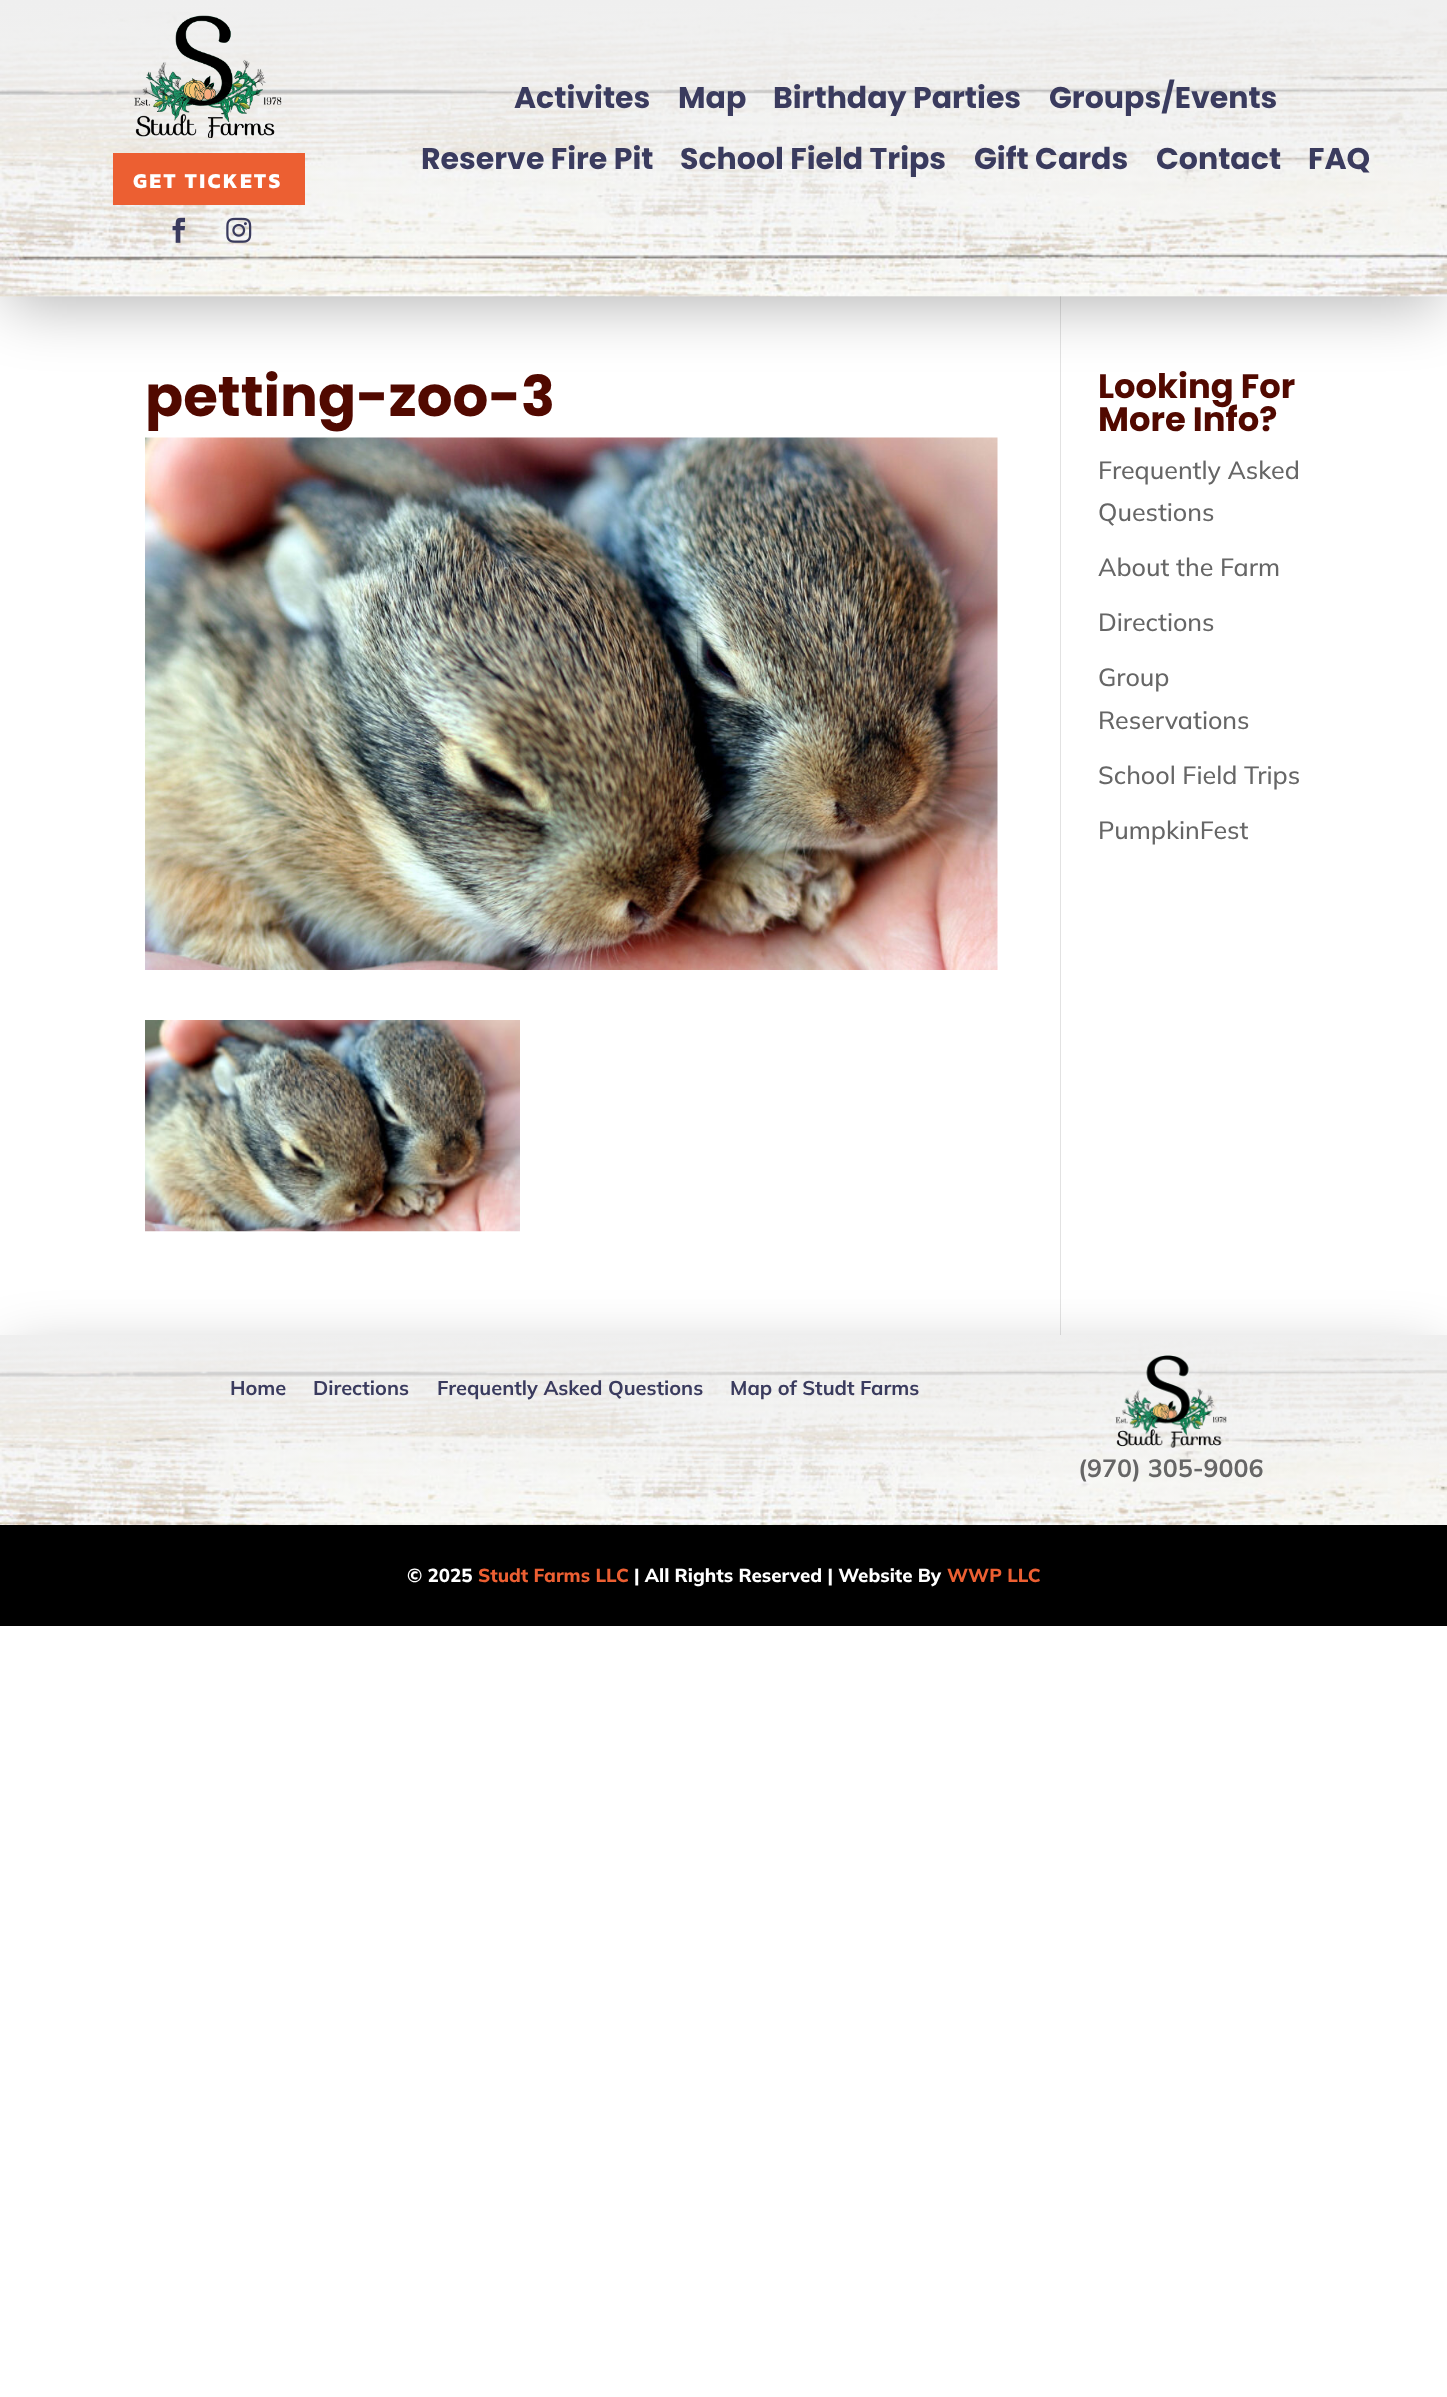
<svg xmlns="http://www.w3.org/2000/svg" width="1447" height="2397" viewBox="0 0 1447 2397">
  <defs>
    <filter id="blur1" x="-50%" y="-200%" width="200%" height="500%"><feGaussianBlur stdDeviation="31"/></filter>
  </defs>
  <rect width="100%" height="100%" fill="#ffffff"/>
  <rect x="1060" y="296" width="1" height="1039" fill="#e2e2e2"/>
  <rect x="8" y="23" width="1432" height="281" fill="#000000" fill-opacity="0.3" filter="url(#blur1)"/>
  <image x="0" y="0" width="1447" height="297" href="img1.png"/>
  <text x="514" y="108" font-family="Poppins" font-size="30" font-weight="bold" fill="#3a3b5e">Activites</text>
  <text x="678" y="108" font-family="Poppins" font-size="30" font-weight="bold" fill="#3a3b5e">Map</text>
  <text x="773" y="108" font-family="Poppins" font-size="30" font-weight="bold" fill="#3a3b5e">Birthday Parties</text>
  <text x="1049" y="108" font-family="Poppins" font-size="30" font-weight="bold" fill="#3a3b5e">Groups/Events</text>
  <text x="421" y="169" font-family="Poppins" font-size="30" font-weight="bold" fill="#3a3b5e">Reserve Fire Pit</text>
  <text x="680" y="169" font-family="Poppins" font-size="30" font-weight="bold" fill="#3a3b5e">School Field Trips</text>
  <text x="974" y="169" font-family="Poppins" font-size="30" font-weight="bold" fill="#3a3b5e">Gift Cards</text>
  <text x="1156" y="169" font-family="Poppins" font-size="30" font-weight="bold" fill="#3a3b5e">Contact</text>
  <text x="1308" y="169" font-family="Poppins" font-size="30" font-weight="bold" fill="#3a3b5e">FAQ</text>
  <image x="134" y="15" width="148" height="123" href="img2.png"/>
  <rect x="113" y="153" width="192" height="52" fill="#ec5f32"/>
  <text x="133" y="188" font-family="Kanit" font-size="21.25" font-weight="bold" letter-spacing="2.5" fill="#ffffff">GET TICKETS</text>
  <image x="172" y="217" width="14" height="26" href="img3.png"/>
  <image x="226" y="217" width="26" height="26" href="img4.png"/>
  <text x="145" y="416" font-family="Poppins" font-size="56.25" font-weight="bold" fill="#510900">petting-zoo-3</text>
  <image x="145" y="437" width="853" height="533" href="img5.png"/>
  <image x="145" y="1020" width="375" height="212" href="img6.png"/>
  <text x="1098" y="398" font-family="Poppins" font-size="33.75" font-weight="bold" fill="#510900">Looking For</text>
  <text x="1098" y="431" font-family="Poppins" font-size="33.75" font-weight="bold" fill="#510900">More Info?</text>
  <text x="1098" y="479" font-family="Mulish" font-size="25" font-weight="200" fill="#666666">Frequently Asked</text>
  <text x="1098" y="521" font-family="Mulish" font-size="25" font-weight="200" fill="#666666">Questions</text>
  <text x="1098" y="576" font-family="Mulish" font-size="25" font-weight="200" fill="#666666">About the Farm</text>
  <text x="1098" y="631" font-family="Mulish" font-size="25" font-weight="200" fill="#666666">Directions</text>
  <text x="1098" y="686" font-family="Mulish" font-size="25" font-weight="200" fill="#666666">Group</text>
  <text x="1098" y="729" font-family="Mulish" font-size="25" font-weight="200" fill="#666666">Reservations</text>
  <text x="1098" y="784" font-family="Mulish" font-size="25" font-weight="200" fill="#666666">School Field Trips</text>
  <text x="1098" y="839" font-family="Mulish" font-size="25" font-weight="200" fill="#666666">PumpkinFest</text>
  <rect x="0" y="1525" width="1447" height="101" fill="#000000"/>
  <rect x="8" y="1358" width="1432" height="175" fill="#000000" fill-opacity="0.3" filter="url(#blur1)"/>
  <image x="0" y="1335" width="1447" height="190" href="img7.png"/>
  <text x="230" y="1395" font-family="'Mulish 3'" font-size="20" font-weight="200" fill="#3a3b5e">Home</text>
  <text x="313" y="1395" font-family="'Mulish 3'" font-size="20" font-weight="200" fill="#3a3b5e">Directions</text>
  <text x="437" y="1395" font-family="'Mulish 3'" font-size="20" font-weight="200" fill="#3a3b5e">Frequently Asked Questions</text>
  <text x="730" y="1395" font-family="'Mulish 3'" font-size="20" font-weight="200" fill="#3a3b5e">Map of Studt Farms</text>
  <image x="1115" y="1355" width="112" height="93" href="img8.png"/>
  <text x="1078" y="1477" font-family="'Mulish 3'" font-size="25" font-weight="200" fill="#666666">(970) 305-9006</text>
  <text x="407" y="1582" font-family="'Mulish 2'" font-size="18.75" font-weight="200" fill="#ffffff">© 2025</text>
  <text x="478" y="1582" font-family="'Mulish 2'" font-size="18.75" font-weight="200" fill="#ec5f32">Studt Farms LLC</text>
  <text x="634" y="1582" font-family="'Mulish 2'" font-size="18.75" font-weight="200" fill="#ffffff">| All Rights Reserved | Website By</text>
  <text x="947" y="1582" font-family="'Mulish 2'" font-size="18.75" font-weight="200" fill="#ec5f32">WWP LLC</text>
</svg>
